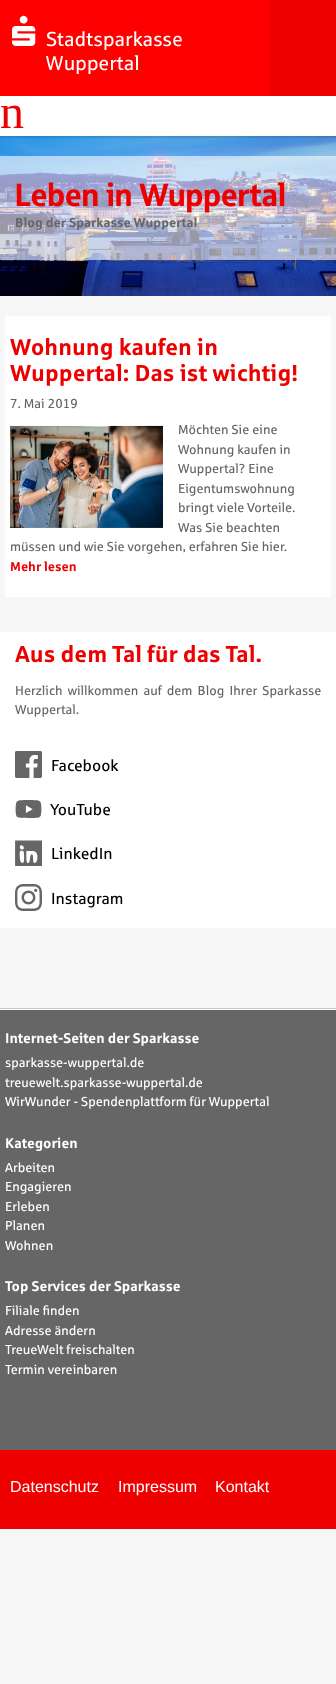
<svg xmlns="http://www.w3.org/2000/svg" width="336" height="1684" viewBox="0 0 336 1684">
  <rect width="100%" height="100%" fill="#f6f6f6"/>
  <rect x="270" y="0" width="66" height="96" fill="#ee0000"/>
  <image x="0" y="0" width="270" height="96" href="img1.png"/>
  <image x="0" y="136" width="336" height="160" href="img2.png"/>
  <rect x="0" y="136" width="336" height="2" fill="#000000" fill-opacity="0.1"/>
  <rect x="0" y="96" width="336" height="40" fill="#ffffff"/>
  <text x="0" y="128" font-family="Liberation Serif" font-size="48" fill="#ee0000">n</text>
  <rect x="0" y="156" width="336" height="104" fill="#fefefe" fill-opacity="0.6"/>
  <text x="15" y="206" font-family="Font" font-size="32" font-weight="bold" fill="#ee0000">Leben in Wuppertal</text>
  <text x="15" y="227" font-family="'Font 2'" font-size="13" font-weight="bold" fill="#666666">Blog der Sparkasse Wuppertal</text>
  <rect x="5" y="316" width="326" height="281" fill="#ffffff"/>
  <text x="10" y="355" font-family="'Font 2'" font-size="23" font-weight="bold" fill="#ee0000">Wohnung kaufen in</text>
  <text x="10" y="381" font-family="'Font 2'" font-size="23" font-weight="bold" fill="#ee0000">Wuppertal: Das ist wichtig!</text>
  <text x="10" y="408" font-family="Font" font-size="13" fill="#666666">7. Mai 2019</text>
  <text x="178" y="434" font-family="Font" font-size="13" fill="#666666">Möchten Sie eine</text>
  <text x="178" y="454" font-family="Font" font-size="13" fill="#666666">Wohnung kaufen in</text>
  <text x="178" y="473" font-family="Font" font-size="13" fill="#666666">Wuppertal? Eine</text>
  <text x="178" y="493" font-family="Font" font-size="13" fill="#666666">Eigentumswohnung</text>
  <text x="178" y="512" font-family="Font" font-size="13" fill="#666666">bringt viele Vorteile.</text>
  <text x="178" y="532" font-family="Font" font-size="13" fill="#666666">Was Sie beachten</text>
  <text x="10" y="551" font-family="Font" font-size="13" fill="#666666">müssen und wie Sie vorgehen, erfahren Sie hier.</text>
  <text x="10" y="571" font-family="'Font 2'" font-size="13" font-weight="bold" fill="#ee0000">Mehr lesen</text>
  <image x="10" y="425" width="153" height="103" href="img3.png"/>
  <rect x="0" y="632" width="336" height="296" fill="#ffffff"/>
  <text x="15" y="662" font-family="'Font 2'" font-size="23" font-weight="bold" fill="#ee0000">Aus dem Tal für das Tal.</text>
  <text x="15" y="695" word-spacing="2.25" font-family="Font" font-size="13" fill="#666666">Herzlich willkommen auf dem Blog Ihrer Sparkasse</text>
  <text x="15" y="714" font-family="Font" font-size="13" fill="#666666">Wuppertal.</text>
  <image x="15" y="751" width="27" height="27" href="img4.png"/>
  <text x="51" y="771" font-family="Font" font-size="16" fill="#000000">Facebook</text>
  <image x="15" y="800" width="27" height="19" href="img5.png"/>
  <text x="50" y="815" font-family="Font" font-size="16" fill="#000000">YouTube</text>
  <image x="15" y="840" width="27" height="26" href="img6.png"/>
  <text x="51" y="859" font-family="Font" font-size="16" fill="#000000">LinkedIn</text>
  <image x="15" y="884" width="27" height="27" href="img7.png"/>
  <text x="51" y="904" font-family="Font" font-size="16" fill="#000000">Instagram</text>
  <rect x="0" y="1008" width="336" height="1" fill="#c9c9c9"/>
  <rect x="0" y="1009" width="336" height="1" fill="#fefefe"/>
  <rect x="0" y="1010" width="336" height="440" fill="#666666"/>
  <text x="5" y="1043" font-family="'Font 2'" font-size="14" font-weight="bold" fill="#ffffff">Internet-Seiten der Sparkasse</text>
  <text x="5" y="1067" font-family="Font" font-size="13" fill="#ffffff">sparkasse-wuppertal.de</text>
  <text x="5" y="1087" font-family="Font" font-size="13" fill="#ffffff">treuewelt.sparkasse-wuppertal.de</text>
  <text x="5" y="1106" font-family="Font" font-size="13" fill="#ffffff">WirWunder - Spendenplattform für Wuppertal</text>
  <text x="5" y="1148" font-family="'Font 2'" font-size="14" font-weight="bold" fill="#ffffff">Kategorien</text>
  <text x="5" y="1172" font-family="Font" font-size="13" fill="#ffffff">Arbeiten</text>
  <text x="5" y="1191" font-family="Font" font-size="13" fill="#ffffff">Engagieren</text>
  <text x="5" y="1211" font-family="Font" font-size="13" fill="#ffffff">Erleben</text>
  <text x="5" y="1230" font-family="Font" font-size="13" fill="#ffffff">Planen</text>
  <text x="5" y="1250" font-family="Font" font-size="13" fill="#ffffff">Wohnen</text>
  <text x="5" y="1291" font-family="'Font 2'" font-size="14" font-weight="bold" fill="#ffffff">Top Services der Sparkasse</text>
  <text x="5" y="1315" font-family="Font" font-size="13" fill="#ffffff">Filiale finden</text>
  <text x="5" y="1335" font-family="Font" font-size="13" fill="#ffffff">Adresse ändern</text>
  <text x="5" y="1354" font-family="Font" font-size="13" fill="#ffffff">TreueWelt freischalten</text>
  <text x="5" y="1374" font-family="Font" font-size="13" fill="#ffffff">Termin vereinbaren</text>
  <rect x="0" y="1450" width="336" height="79" fill="#ee0000"/>
  <text x="10" y="1492" font-family="Liberation Sans" font-size="16" fill="#ffffff">Datenschutz</text>
  <text x="118" y="1492" font-family="Liberation Sans" font-size="16" fill="#ffffff">Impressum</text>
  <text x="215" y="1492" font-family="Liberation Sans" font-size="16" fill="#ffffff">Kontakt</text>
</svg>
